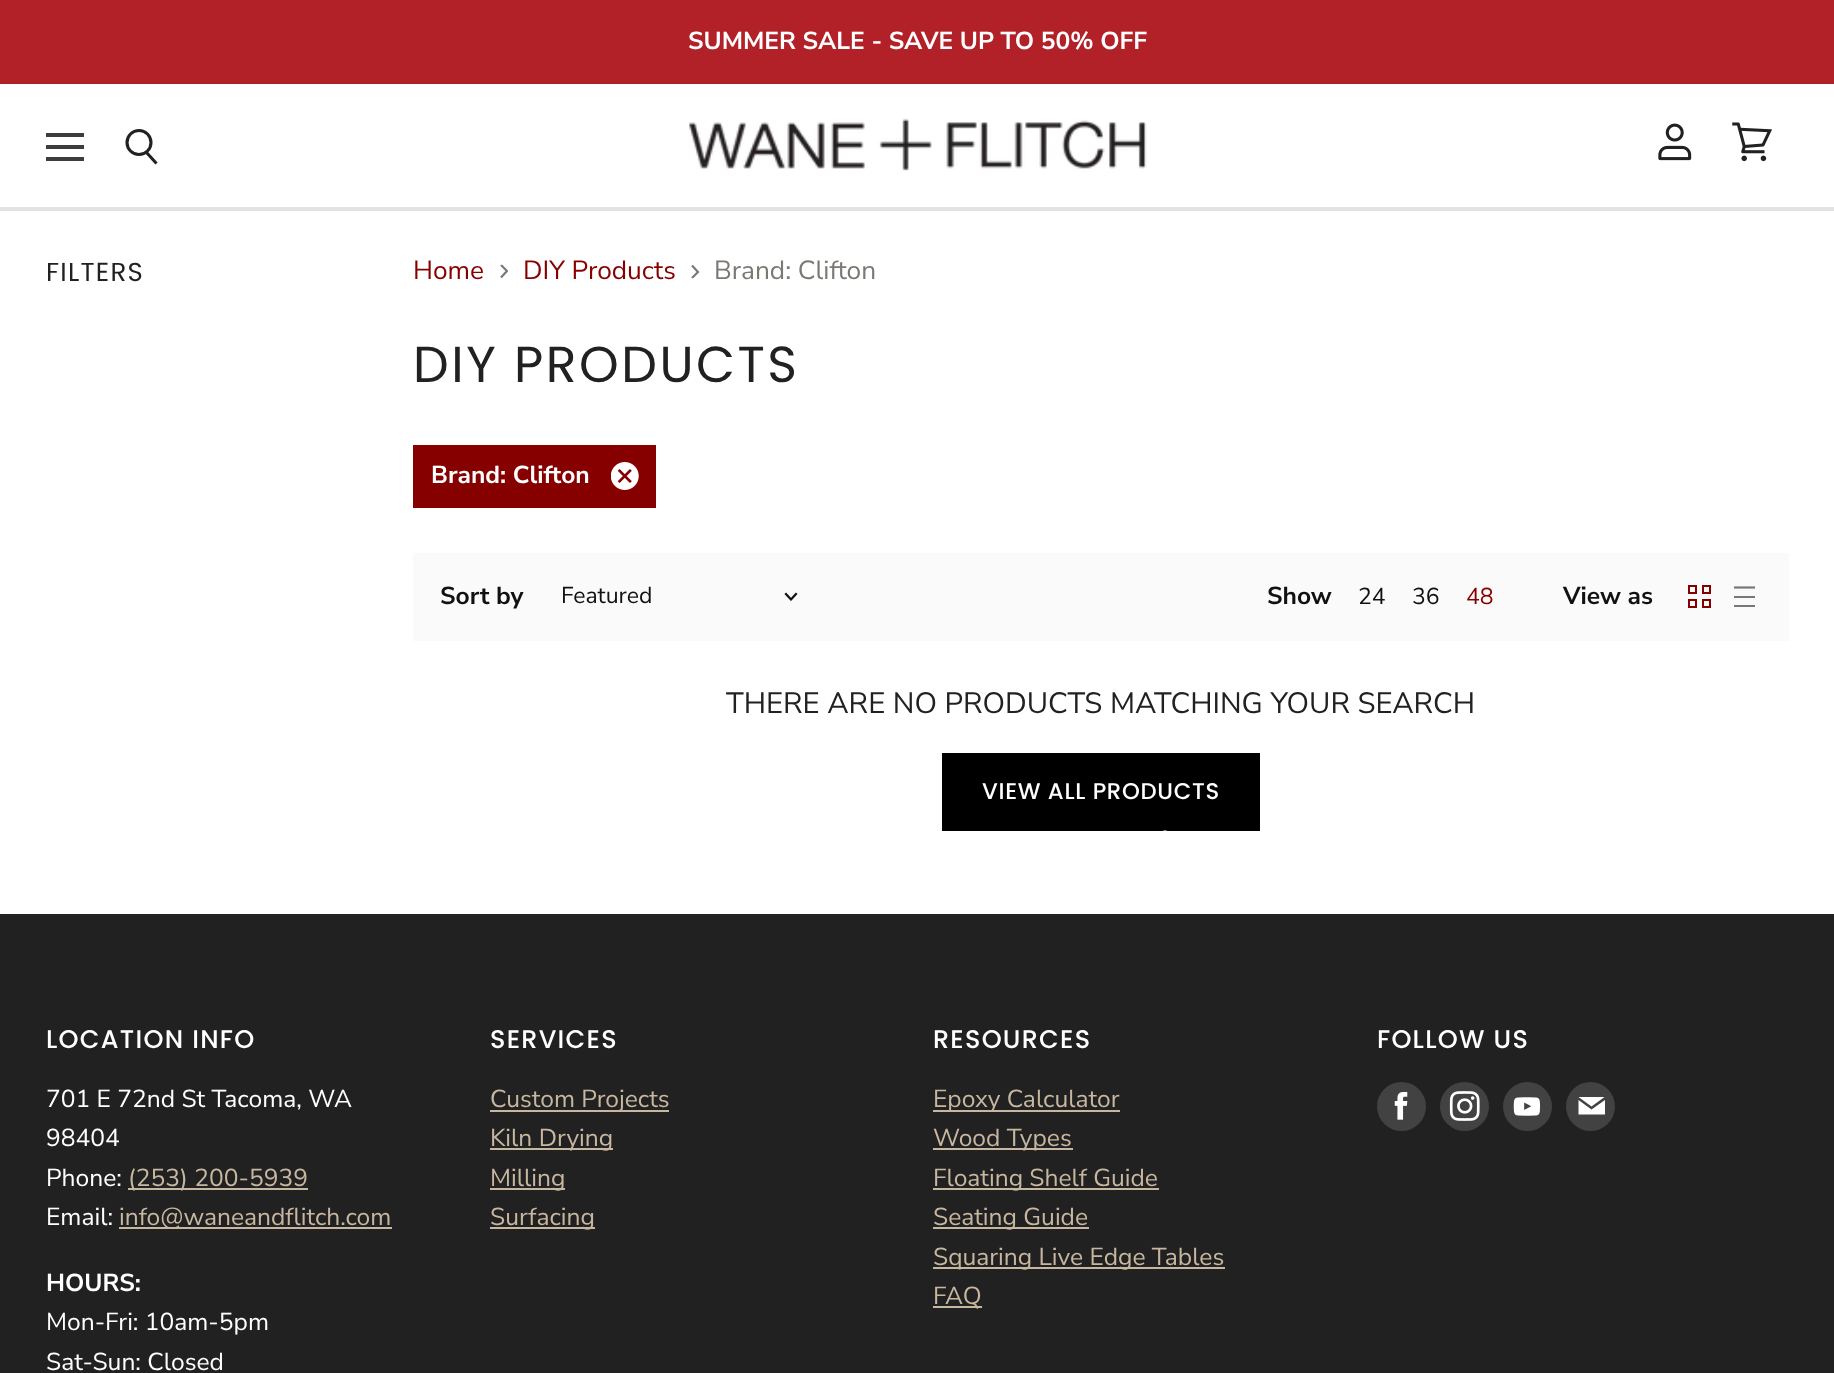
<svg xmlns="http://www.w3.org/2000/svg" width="1834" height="1373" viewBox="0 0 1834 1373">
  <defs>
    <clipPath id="clip1"><path d="M499.5 278.5V264.5H508V278.5Z"/></clipPath>
    <clipPath id="clip2"><path d="M690.5 278.5V264.5H699.5V278.5Z"/></clipPath>
  </defs>
  <rect width="100%" height="100%" fill="#ffffff"/>
  <rect x="0" y="0" width="1834" height="84" fill="#b22028"/>
  <text x="688" y="49" font-family="Nunito Sans" font-size="24.6" font-weight="bold" fill="#ffffff">SUMMER SALE - SAVE UP TO 50% OFF</text>
  <rect x="0" y="207" width="1834" height="4" fill="#e3e3e3"/>
  <rect x="46" y="133" width="38" height="4" fill="#3d3d3d"/>
  <rect x="46" y="145" width="38" height="4" fill="#3d3d3d"/>
  <rect x="46" y="157" width="38" height="4" fill="#3d3d3d"/>
  <path d="M156.5 163.5L146.5 152.5" fill="none" stroke="#212121" stroke-width="3.1"/>
  <circle cx="139" cy="142.5" r="12" fill="none" stroke="#212121" stroke-width="3.1"/>
  <image x="688" y="118" width="459" height="53" href="img1.png"/>
  <image x="1658" y="123" width="34" height="38" href="img2.png"/>
  <image x="1732" y="122" width="40" height="40" href="img3.png"/>
  <text x="46" y="281" font-family="Poppins" font-size="26" letter-spacing="1.25" fill="#212121">FILTERS</text>
  <text x="413" y="279" font-family="Nunito Sans" font-size="26.25" fill="#870000">Home</text>
  <g clip-path="url(#clip1)">
    <path d="M501 277.5L507 271L501 265" fill="none" stroke="#7c7873" stroke-width="2.2"/>
  </g>
  <text x="523" y="279" font-family="Nunito Sans" font-size="26.25" fill="#870000">DIY Products</text>
  <g clip-path="url(#clip2)">
    <path d="M692 278L698 272L692 265.5" fill="none" stroke="#7c7873" stroke-width="2.2"/>
  </g>
  <text x="714" y="279" font-family="Nunito Sans" font-size="26.25" fill="#7c7873">Brand: Clifton</text>
  <text x="413" y="382" font-family="Poppins" font-size="50.5" letter-spacing="2.5" fill="#212121">DIY PRODUCTS</text>
  <rect x="413" y="445" width="243" height="63" fill="#870000"/>
  <text x="431" y="483" font-family="Nunito Sans" font-size="24.6" font-weight="bold" fill="#ffffff">Brand: Clifton</text>
  <image x="611" y="462" width="28" height="28" href="img4.png"/>
  <rect x="413" y="553" width="1376" height="88" fill="#fafafa"/>
  <text x="440" y="604" font-family="Nunito Sans" font-size="24.6" font-weight="bold" fill="#111111">Sort by</text>
  <text x="561" y="603" font-family="Nunito Sans" font-size="23" fill="#111111">Featured</text>
  <path d="M791 599.5L796 594M791 599.5L786 594" fill="none" stroke="#111111" stroke-width="2.2" stroke-linecap="square"/>
  <text x="1267" y="604" font-family="Nunito Sans" font-size="24.6" font-weight="bold" fill="#111111">Show</text>
  <text x="1358" y="604" font-family="Nunito Sans" font-size="23" fill="#111111">24</text>
  <text x="1412" y="604" font-family="Nunito Sans" font-size="23" fill="#111111">36</text>
  <text x="1466" y="604" font-family="Nunito Sans" font-size="23" fill="#870000">48</text>
  <text x="1563" y="604" font-family="Nunito Sans" font-size="24.6" font-weight="bold" fill="#111111">View as</text>
  <rect x="1689" y="586" width="7" height="7" fill="none" stroke="#870000" stroke-width="2"/>
  <rect x="1703" y="586" width="7" height="7" fill="none" stroke="#870000" stroke-width="2"/>
  <rect x="1689" y="600" width="7" height="7" fill="none" stroke="#870000" stroke-width="2"/>
  <rect x="1703" y="600" width="7" height="7" fill="none" stroke="#870000" stroke-width="2"/>
  <path d="M1734 587.5H1755" fill="none" stroke="#777777" stroke-width="2.2" stroke-linejoin="round"/>
  <rect x="1734" y="596" width="21" height="2" fill="#777777"/>
  <rect x="1734" y="605" width="21" height="2" fill="#777777"/>
  <text x="726" y="713" font-family="Nunito Sans" font-size="29.3" fill="#212121">THERE ARE NO PRODUCTS MATCHING YOUR SEARCH</text>
  <rect x="942" y="753" width="318" height="78" fill="#000000"/>
  <text x="982" y="799" font-family="Poppins" font-size="22.75" font-weight="500" letter-spacing="0.7" fill="#ffffff">VIEW ALL PRODUCTS</text>
  <path d="M1165 830.5C1165 865.5 1137 894 1101.5 894" fill="none" stroke="#ffffff" stroke-width="3.5"/>
  <rect x="0" y="914" width="1834" height="459" fill="#212121"/>
  <text x="46" y="1048" font-family="Poppins" font-size="25.5" font-weight="500" letter-spacing="1.25" fill="#ffffff">LOCATION INFO</text>
  <text x="46" y="1107" font-family="Nunito Sans" font-size="24.6" fill="#ffffff">701 E 72nd St Tacoma, WA</text>
  <text x="46" y="1146" font-family="Nunito Sans" font-size="24.6" fill="#ffffff">98404</text>
  <text x="46" y="1186" font-family="Nunito Sans" font-size="24.6" fill="#ffffff">Phone:</text>
  <rect x="128" y="1188" width="180" height="2" fill="#c7b7a0"/>
  <text x="128" y="1186" font-family="Nunito Sans" font-size="24.6" fill="#c7b7a0">(253) 200-5939</text>
  <text x="46" y="1225" font-family="Nunito Sans" font-size="24.6" fill="#ffffff">Email:</text>
  <rect x="119" y="1227" width="273" height="2" fill="#c7b7a0"/>
  <text x="119" y="1225" font-family="Nunito Sans" font-size="24.6" fill="#c7b7a0">info@waneandflitch.com</text>
  <text x="46" y="1291" font-family="Nunito Sans" font-size="24.6" font-weight="bold" fill="#ffffff">HOURS:</text>
  <text x="46" y="1330" font-family="Nunito Sans" font-size="24.6" fill="#ffffff">Mon-Fri: 10am-5pm</text>
  <text x="46" y="1370" font-family="Nunito Sans" font-size="24.6" fill="#ffffff">Sat-Sun: Closed</text>
  <text x="490" y="1048" font-family="Poppins" font-size="25.5" font-weight="500" letter-spacing="1.25" fill="#ffffff">SERVICES</text>
  <rect x="490" y="1110" width="179" height="2" fill="#c7b7a0"/>
  <text x="490" y="1107" font-family="Nunito Sans" font-size="24.6" fill="#c7b7a0">Custom Projects</text>
  <rect x="490" y="1148" width="123" height="2" fill="#c7b7a0"/>
  <text x="490" y="1146" font-family="Nunito Sans" font-size="24.6" fill="#c7b7a0">Kiln Drying</text>
  <rect x="490" y="1188" width="75" height="2" fill="#c7b7a0"/>
  <text x="490" y="1186" font-family="Nunito Sans" font-size="24.6" fill="#c7b7a0">Milling</text>
  <rect x="490" y="1227" width="105" height="2" fill="#c7b7a0"/>
  <text x="490" y="1225" font-family="Nunito Sans" font-size="24.6" fill="#c7b7a0">Surfacing</text>
  <text x="933" y="1048" font-family="Poppins" font-size="25.5" font-weight="500" letter-spacing="1.25" fill="#ffffff">RESOURCES</text>
  <rect x="933" y="1110" width="187" height="2" fill="#c7b7a0"/>
  <text x="933" y="1107" font-family="Nunito Sans" font-size="24.6" fill="#c7b7a0">Epoxy Calculator</text>
  <rect x="933" y="1148" width="140" height="2" fill="#c7b7a0"/>
  <text x="933" y="1146" font-family="Nunito Sans" font-size="24.6" fill="#c7b7a0">Wood Types</text>
  <rect x="933" y="1188" width="226" height="2" fill="#c7b7a0"/>
  <text x="933" y="1186" font-family="Nunito Sans" font-size="24.6" fill="#c7b7a0">Floating Shelf Guide</text>
  <rect x="933" y="1227" width="156" height="2" fill="#c7b7a0"/>
  <text x="933" y="1225" font-family="Nunito Sans" font-size="24.6" fill="#c7b7a0">Seating Guide</text>
  <rect x="933" y="1267" width="292" height="2" fill="#c7b7a0"/>
  <text x="933" y="1265" font-family="Nunito Sans" font-size="24.6" fill="#c7b7a0">Squaring Live Edge Tables</text>
  <rect x="933" y="1306" width="49" height="2" fill="#c7b7a0"/>
  <text x="933" y="1304" font-family="Nunito Sans" font-size="24.6" fill="#c7b7a0">FAQ</text>
  <text x="1377" y="1048" font-family="Poppins" font-size="25.5" font-weight="500" letter-spacing="1.25" fill="#ffffff">FOLLOW US</text>
  <circle cx="1401.5" cy="1106.5" r="24.5" fill="#424242"/>
  <image x="1394" y="1092" width="14" height="28" href="img5.png"/>
  <circle cx="1464.5" cy="1106.5" r="24.5" fill="#424242"/>
  <image x="1449" y="1091" width="31" height="30" href="img6.png"/>
  <circle cx="1527.5" cy="1106.5" r="24.5" fill="#424242"/>
  <image x="1513" y="1097" width="28" height="19" href="img7.png"/>
  <circle cx="1590.5" cy="1106.5" r="24.5" fill="#424242"/>
  <path d="M1604.5 1097H1578.5L1591.5 1106.5ZM1591.5 1109.5L1578.5 1100V1114.5H1605V1100Z" fill="#ffffff" fill-rule="evenodd"/>
</svg>
